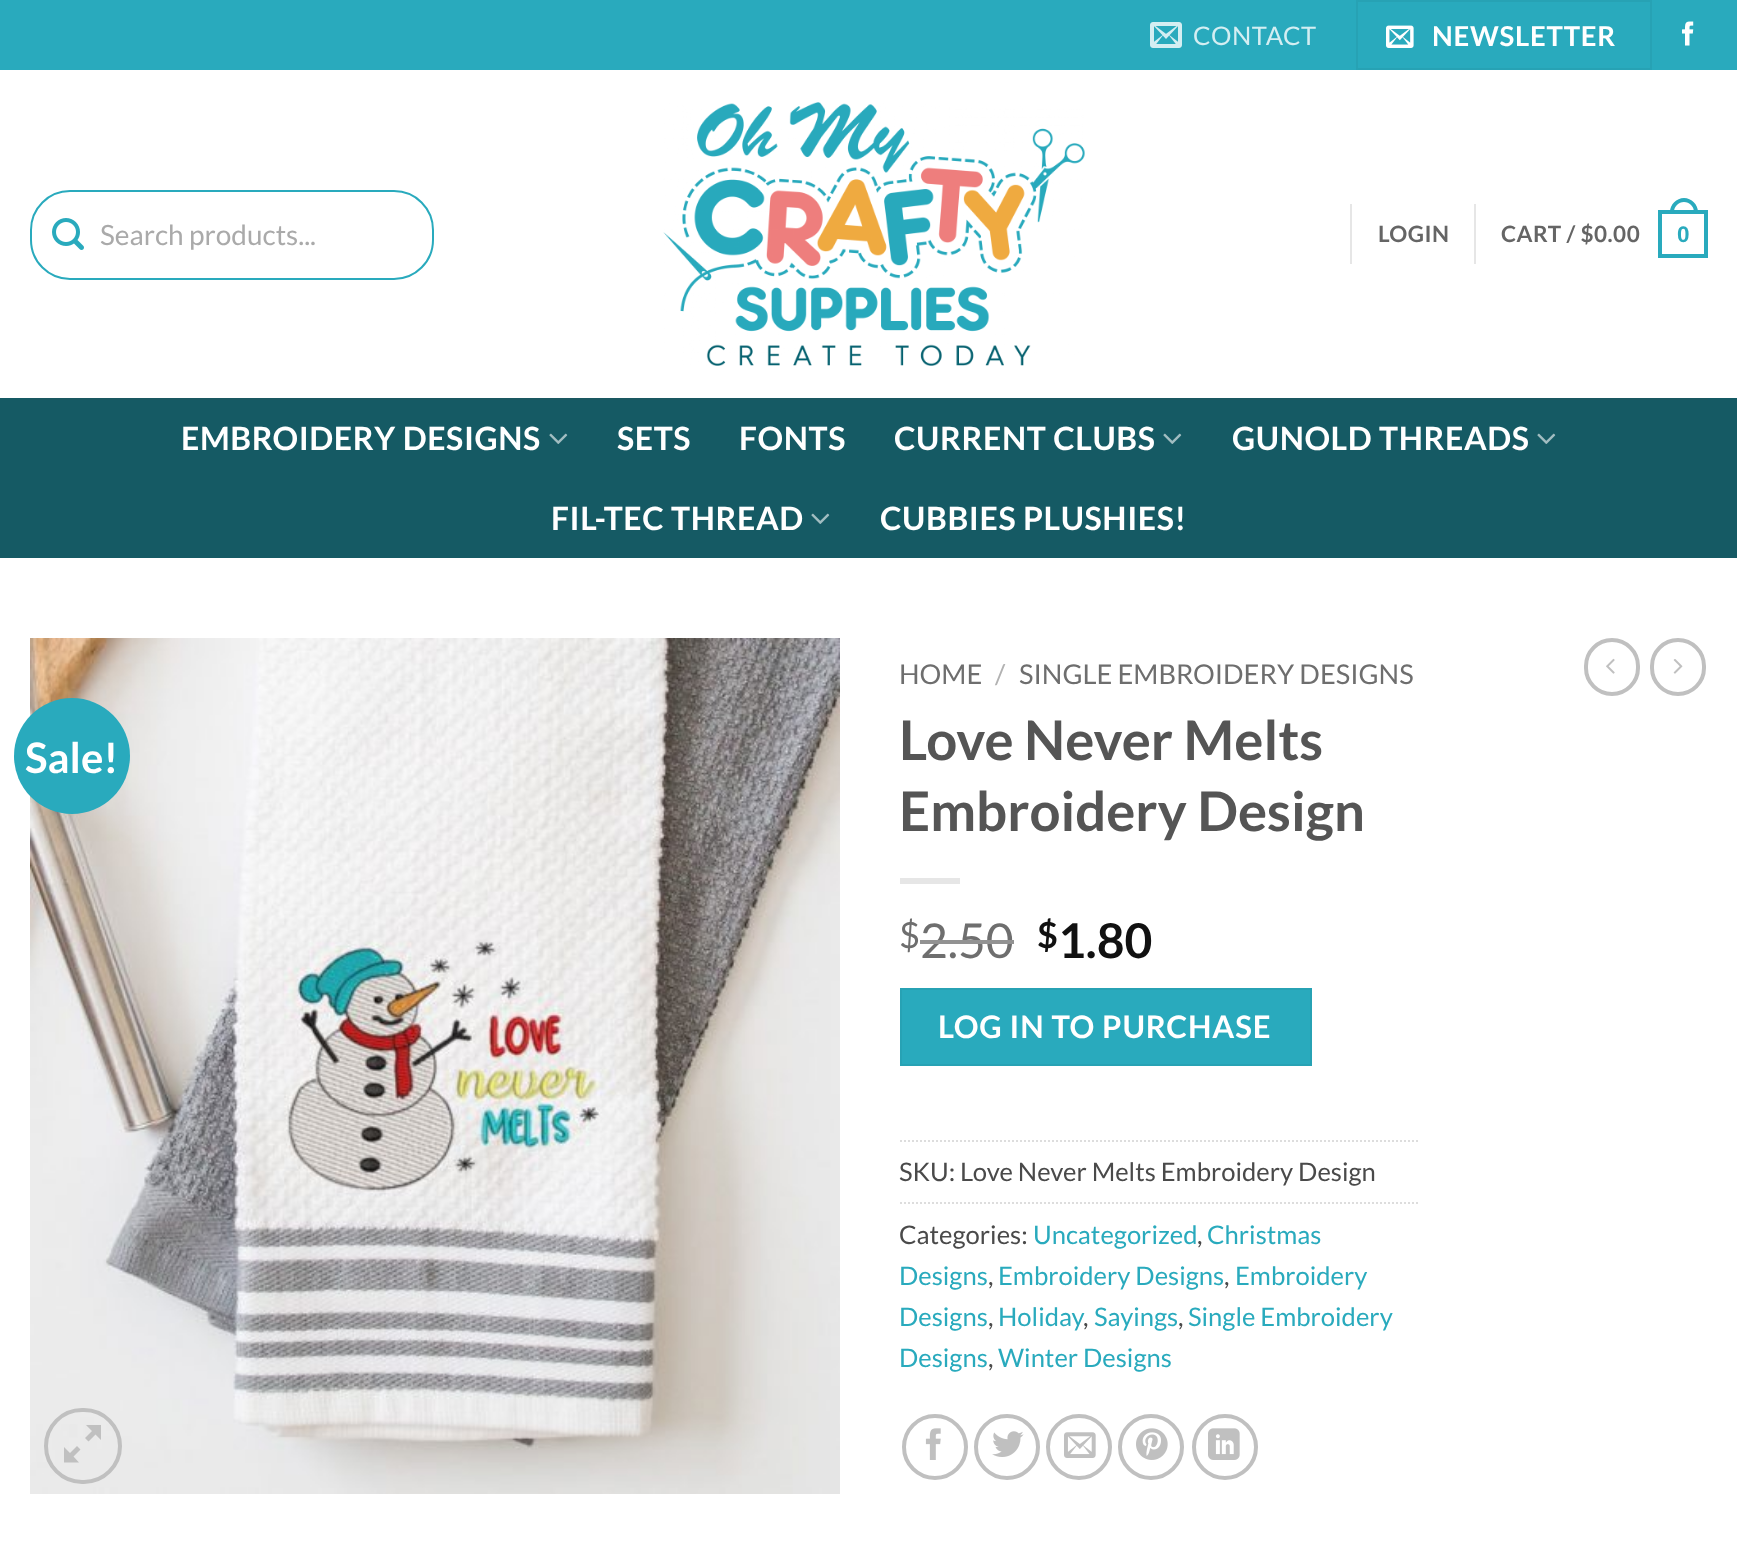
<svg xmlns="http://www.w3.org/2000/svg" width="1737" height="1568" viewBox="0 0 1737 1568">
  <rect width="100%" height="100%" fill="#ffffff"/>
  <rect x="0" y="0" width="1737" height="70" fill="#29aabd"/>
  <image x="1150" y="22" width="32" height="26" href="img1.png"/>
  <text x="1193" y="45" font-family="Lato" font-size="25.6" letter-spacing="0.5" fill="#d4eef2">CONTACT</text>
  <rect x="1357" y="1" width="294" height="68" fill="none" stroke="#27a2b4" stroke-width="2"/>
  <image x="1386" y="25" width="28" height="23" href="img2.png"/>
  <text x="1432" y="46" font-family="Lato" font-size="27.5" font-weight="bold" letter-spacing="0.75" fill="#ffffff">NEWSLETTER</text>
  <image x="1682" y="21" width="12" height="25" href="img3.png"/>
  <rect x="31" y="191" width="402" height="88" rx="39" fill="none" stroke="#29aabd" stroke-width="2"/>
  <image x="52" y="218" width="32" height="32" href="img4.png"/>
  <text x="100" y="245" font-family="Lato" font-size="28" fill="#aaaaaa">Search products...</text>
  <image x="663" y="102" width="422" height="264" href="img5.png"/>
  <rect x="1350" y="204" width="2" height="60" fill="#e6e6e6"/>
  <text x="1378" y="242" font-family="Lato" font-size="22.5" font-weight="bold" letter-spacing="0.5" fill="#656565">LOGIN</text>
  <rect x="1474" y="204" width="2" height="60" fill="#e6e6e6"/>
  <text x="1501" y="242" font-family="Lato" font-size="22.5" font-weight="bold" letter-spacing="0.5" fill="#656565">CART / $0.00</text>
  <rect x="1660" y="212" width="46" height="44" fill="none" stroke="#29aabd" stroke-width="4"/>
  <path d="M1684 198C1691.5 198 1698 204.5 1698 212V214H1670V212C1670 204.5 1676.5 198 1684 198ZM1684 202C1689.5 202 1694 206.5 1694 212V214H1674V212C1674 206.5 1678.5 202 1684 202Z" fill="#29aabd" fill-rule="evenodd"/>
  <text x="1677" y="242" font-family="Liberation Sans" font-size="22.5" font-weight="bold" letter-spacing="0.5" fill="#29aabd">0</text>
  <rect x="0" y="398" width="1737" height="160" fill="#155a64"/>
  <rect x="30" y="398" width="1678" height="2" fill="#1a5861"/>
  <text x="181" y="450" font-family="Lato" font-size="32" font-weight="bold" letter-spacing="0.6" fill="#ffffff">EMBROIDERY DESIGNS</text>
  <image x="549" y="433" width="19" height="11" href="img6.png"/>
  <text x="617" y="450" font-family="Lato" font-size="32" font-weight="bold" letter-spacing="0.6" fill="#ffffff">SETS</text>
  <text x="739" y="450" font-family="Lato" font-size="32" font-weight="bold" letter-spacing="0.6" fill="#ffffff">FONTS</text>
  <text x="894" y="450" font-family="Lato" font-size="32" font-weight="bold" letter-spacing="0.6" fill="#ffffff">CURRENT CLUBS</text>
  <image x="1163" y="433" width="19" height="11" href="img6.png"/>
  <text x="1232" y="450" font-family="Lato" font-size="32" font-weight="bold" letter-spacing="0.6" fill="#ffffff">GUNOLD THREADS</text>
  <image x="1537" y="433" width="19" height="11" href="img6.png"/>
  <text x="551" y="530" font-family="Lato" font-size="32" font-weight="bold" letter-spacing="0.6" fill="#ffffff">FIL-TEC THREAD</text>
  <image x="811" y="513" width="19" height="11" href="img6.png"/>
  <text x="880" y="530" font-family="Lato" font-size="32" font-weight="bold" letter-spacing="0.6" fill="#ffffff">CUBBIES PLUSHIES!</text>
  <image x="30" y="638" width="810" height="856" href="img7.png"/>
  <circle cx="72" cy="756" r="58" fill="#29aabd"/>
  <text x="25" y="773" font-family="Lato" font-size="42" font-weight="bold" fill="#ffffff">Sale!</text>
  <rect x="46" y="1410" width="74" height="72" rx="36" fill="none" stroke="#c0c0c0" stroke-width="4"/>
  <path d="M101 1425V1440L95.5 1434.5L88.5 1441.5L85 1438L92 1431L86 1425ZM80.5 1449.5L73.5 1456.5L79 1462.5H64V1447L70 1453L77 1446Z" fill="#c0c0c0"/>
  <text x="899" y="684" font-family="Lato" font-size="27.25" fill="#6e6e6e">HOME</text>
  <text x="995" y="684" font-family="Lato" font-size="27.25" fill="#b2b2b2">/</text>
  <text x="1019" y="684" font-family="Lato" font-size="27.25" fill="#6e6e6e">SINGLE EMBROIDERY DESIGNS</text>
  <text x="899" y="760" font-family="Lato" font-size="54.5" font-weight="bold" fill="#555555">Love Never Melts</text>
  <text x="899" y="831" font-family="Lato" font-size="54.5" font-weight="bold" fill="#555555">Embroidery Design</text>
  <rect x="900" y="878" width="60" height="6" fill="#e6e6e6"/>
  <text x="899" y="948" font-family="Lato" font-size="36" fill="#6e6e6e">$</text>
  <text x="920" y="958" font-family="Lato" font-size="48" fill="#6e6e6e">2.50</text>
  <rect x="920" y="940" width="94" height="4" fill="#929292"/>
  <text x="1037" y="948" font-family="Lato" font-size="36" font-weight="bold" fill="#111111">$</text>
  <text x="1058" y="958" font-family="Lato" font-size="48" font-weight="bold" fill="#111111">1.80</text>
  <rect x="901" y="989" width="410" height="76" fill="#29aabd" stroke="#27a2b4" stroke-width="2"/>
  <text x="938" y="1038" font-family="Lato" font-size="31" font-weight="bold" letter-spacing="0.9" fill="#ffffff">LOG IN TO PURCHASE</text>
  <path d="M900 1141H1418" fill="none" stroke="#dddddd" stroke-width="2" stroke-dasharray="2 2"/>
  <text x="899" y="1181" font-family="Lato" font-size="25.6" fill="#4a4a4a">SKU: Love Never Melts Embroidery Design</text>
  <path d="M900 1203H1418" fill="none" stroke="#dddddd" stroke-width="2" stroke-dasharray="2 2"/>
  <text x="899" y="1244" font-family="Lato" font-size="25.6" fill="#4a4a4a">Categories:</text>
  <text x="1033" y="1244" font-family="Lato" font-size="25.6" fill="#29aabd">Uncategorized</text>
  <text x="1197" y="1244" font-family="Lato" font-size="25.6" fill="#4a4a4a">,</text>
  <text x="1207" y="1244" font-family="Lato" font-size="25.6" fill="#29aabd">Christmas</text>
  <text x="899" y="1285" font-family="Lato" font-size="25.6" fill="#29aabd">Designs</text>
  <text x="988" y="1285" font-family="Lato" font-size="25.6" fill="#4a4a4a">,</text>
  <text x="998" y="1285" font-family="Lato" font-size="25.6" fill="#29aabd">Embroidery Designs</text>
  <text x="1224" y="1285" font-family="Lato" font-size="25.6" fill="#4a4a4a">,</text>
  <text x="1235" y="1285" font-family="Lato" font-size="25.6" fill="#29aabd">Embroidery</text>
  <text x="899" y="1326" font-family="Lato" font-size="25.6" fill="#29aabd">Designs</text>
  <text x="988" y="1326" font-family="Lato" font-size="25.6" fill="#4a4a4a">,</text>
  <text x="998" y="1326" font-family="Lato" font-size="25.6" fill="#29aabd">Holiday</text>
  <text x="1083" y="1326" font-family="Lato" font-size="25.6" fill="#4a4a4a">,</text>
  <text x="1094" y="1326" font-family="Lato" font-size="25.6" fill="#29aabd">Sayings</text>
  <text x="1178" y="1326" font-family="Lato" font-size="25.6" fill="#4a4a4a">,</text>
  <text x="1188" y="1326" font-family="Lato" font-size="25.6" fill="#29aabd">Single Embroidery</text>
  <text x="899" y="1367" font-family="Lato" font-size="25.6" fill="#29aabd">Designs</text>
  <text x="988" y="1367" font-family="Lato" font-size="25.6" fill="#4a4a4a">,</text>
  <text x="998" y="1367" font-family="Lato" font-size="25.6" fill="#29aabd">Winter Designs</text>
  <circle cx="935" cy="1447" r="31" fill="none" stroke="#c0c0c0" stroke-width="4"/>
  <image x="925" y="1428" width="16" height="32" href="img8.png"/>
  <circle cx="1007" cy="1447" r="31" fill="none" stroke="#c0c0c0" stroke-width="4"/>
  <image x="992" y="1431" width="32" height="26" href="img9.png"/>
  <circle cx="1079" cy="1447" r="31" fill="none" stroke="#c0c0c0" stroke-width="4"/>
  <image x="1064" y="1432" width="32" height="26" href="img10.png"/>
  <circle cx="1151" cy="1447" r="31" fill="none" stroke="#c0c0c0" stroke-width="4"/>
  <image x="1136" y="1428" width="32" height="32" href="img11.png"/>
  <circle cx="1225" cy="1447" r="31" fill="none" stroke="#c0c0c0" stroke-width="4"/>
  <image x="1208" y="1428" width="32" height="32" href="img12.png"/>
  <rect x="1586" y="640" width="52" height="54" rx="26" fill="none" stroke="#c0c0c0" stroke-width="4"/>
  <image x="1606" y="658" width="9" height="16" href="img13.png"/>
  <rect x="1652" y="640" width="52" height="54" rx="26" fill="none" stroke="#c0c0c0" stroke-width="4"/>
  <image x="1673" y="659" width="10" height="15" href="img14.png"/>
</svg>
